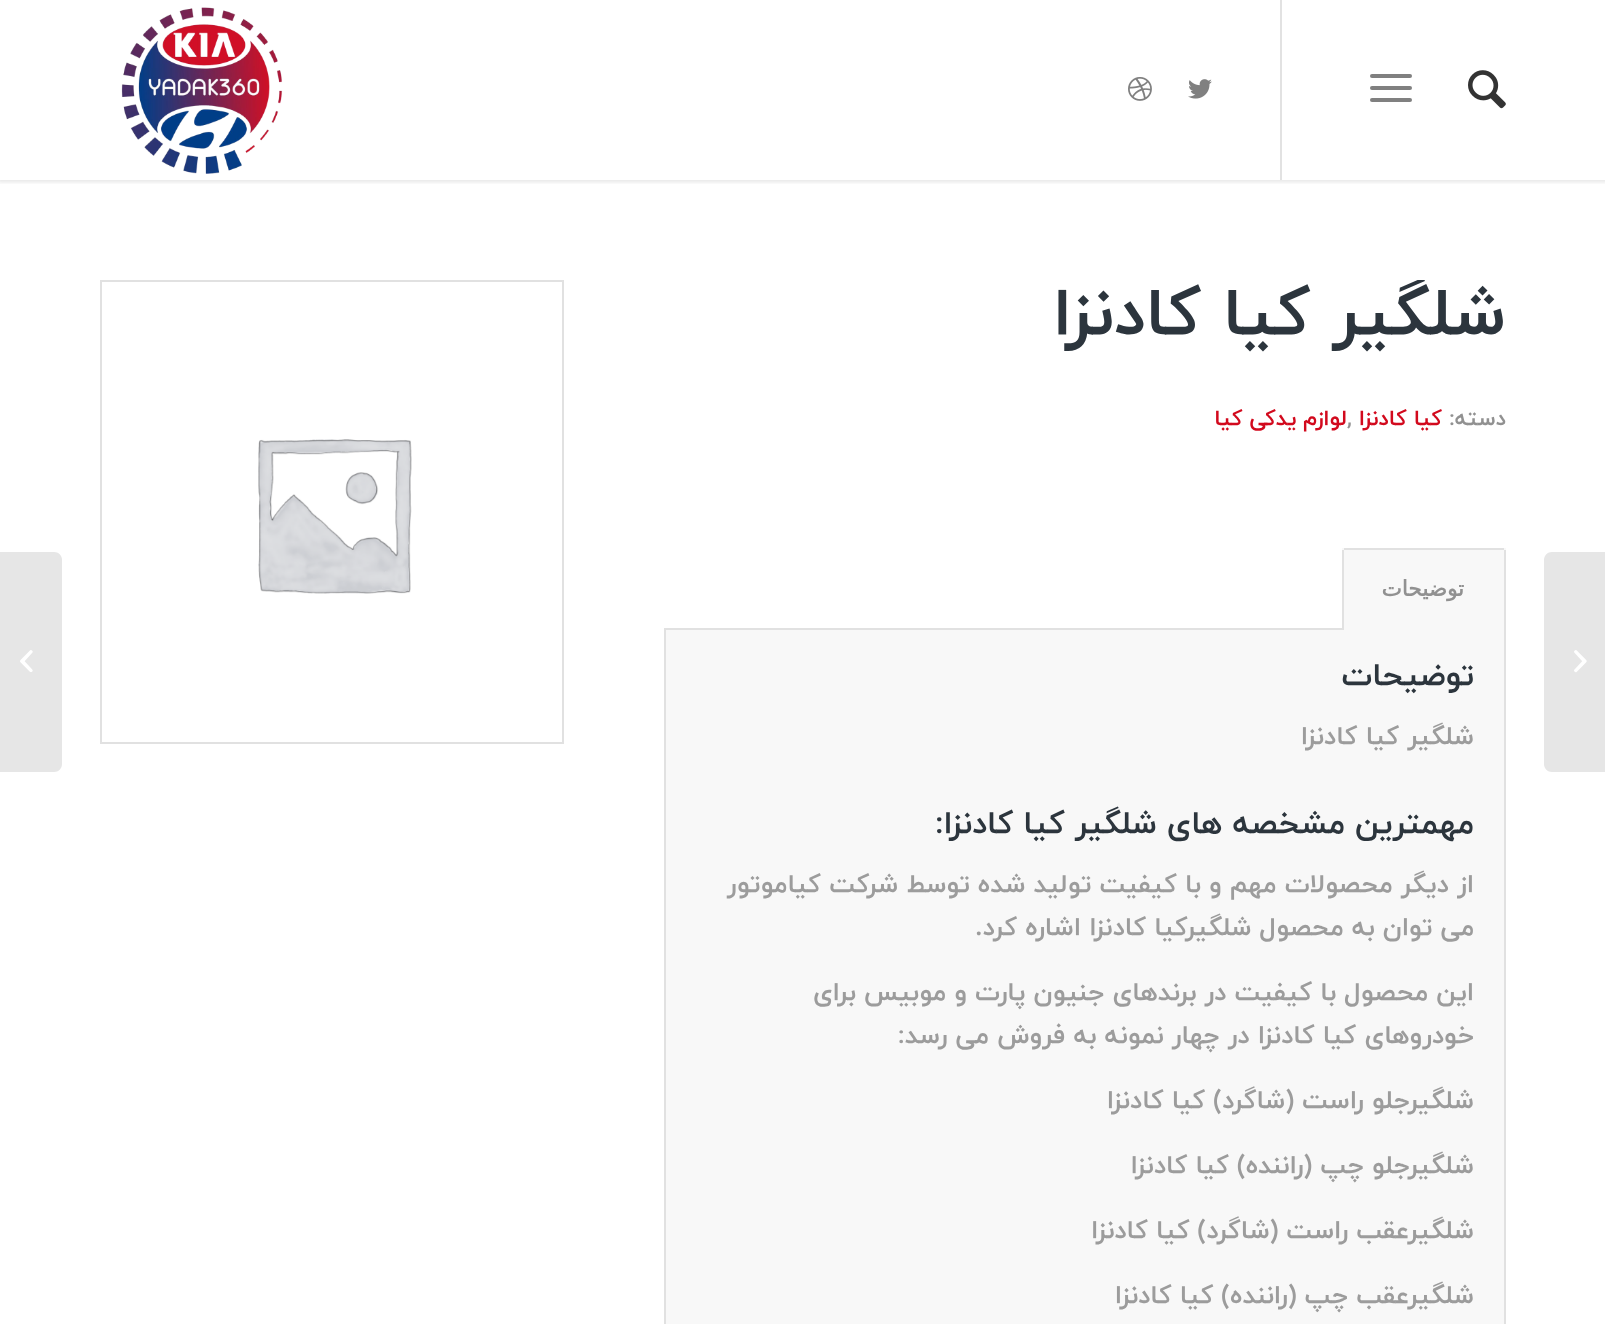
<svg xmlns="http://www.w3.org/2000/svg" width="1605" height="1324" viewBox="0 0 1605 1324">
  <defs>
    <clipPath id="clip1"><rect x="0" y="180" width="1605" height="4"/></clipPath>
    <filter id="blur1" x="-50%" y="-200%" width="200%" height="500%"><feGaussianBlur stdDeviation="2"/></filter>
    <clipPath id="clip2"><rect x="664" y="280" width="842" height="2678"/></clipPath>
  </defs>
  <rect width="100%" height="100%" fill="#ffffff"/>
  <g clip-path="url(#clip1)">
    <rect x="-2" y="-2" width="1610" height="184" fill="#000000" fill-opacity="0.1" filter="url(#blur1)"/>
  </g>
  <rect x="1280" y="0" width="2" height="180" fill="#e2e2e2"/>
  <image x="1468" y="70" width="38" height="39" href="img1.png"/>
  <rect x="1370" y="86" width="42" height="4" rx="2" fill="#808080"/>
  <rect x="1370" y="74" width="42" height="4" rx="2" fill="#808080"/>
  <rect x="1370" y="98" width="42" height="4" rx="2" fill="#808080"/>
  <image x="1188" y="79" width="24" height="20" href="img2.png"/>
  <image x="1128" y="77" width="24" height="24" href="img3.png"/>
  <image x="121" y="7" width="162" height="167" href="img4.png"/>
  <path d="M1552 552H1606V772H1552C1547.5 772 1544 768.5 1544 764V560C1544 555.5 1547.5 552 1552 552Z" fill="#e6e6e6"/>
  <image x="1574" y="650" width="13" height="23" href="img5.png"/>
  <g clip-path="url(#clip2)">
    <text x="1506" y="334" font-family="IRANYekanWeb" font-size="68" font-weight="bold" direction="rtl" fill="#2c353d">شلگیر کیا کادنزا</text>
  </g>
  <text x="1506" y="425" font-family="IRANYekanWeb" font-size="22" font-weight="bold" direction="rtl" fill="#919191">دسته:</text>
  <text x="1442" y="425" font-family="IRANYekanWeb" font-size="22" font-weight="bold" direction="rtl" fill="#d2091d">کیا کادنزا</text>
  <text x="1347" y="425" font-family="IRANYekanWeb" font-size="22" font-weight="bold" fill="#919191">,</text>
  <text x="1347" y="425" font-family="IRANYekanWeb" font-size="22" font-weight="bold" direction="rtl" fill="#d2091d">لوازم یدکی کیا</text>
  <rect x="665" y="629" width="840" height="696" fill="#f8f8f8" stroke="#e1e1e1" stroke-width="2"/>
  <rect x="1342" y="548" width="164" height="82" fill="#f8f8f8"/>
  <rect x="1344" y="548" width="160" height="2" fill="#e1e1e1"/>
  <rect x="1504" y="550" width="2" height="80" fill="#e1e1e1"/>
  <rect x="1342" y="550" width="2" height="80" fill="#e1e1e1"/>
  <text x="1464" y="596" font-family="DejaVu Sans" font-size="21.5" font-weight="bold" direction="rtl" fill="#919191">توضیحات</text>
  <text x="1474" y="685" font-family="IRANYekanWeb" font-size="32" font-weight="bold" direction="rtl" fill="#2c353d">توضیحات</text>
  <text x="1474" y="744" font-family="IRANYekanWeb" font-size="26" font-weight="bold" direction="rtl" fill="#9c9c9c">شلگیر کیا کادنزا</text>
  <text x="1474" y="833" font-family="IRANYekanWeb" font-size="32" font-weight="bold" direction="rtl" fill="#2c353d">مهمترین مشخصه های شلگیر کیا کادنزا:</text>
  <text x="1474" y="892" font-family="IRANYekanWeb" font-size="26" font-weight="bold" direction="rtl" fill="#9c9c9c">از دیگر محصولات مهم و با کیفیت تولید شده توسط شرکت کیاموتور</text>
  <text x="1474" y="935" font-family="IRANYekanWeb" font-size="26" font-weight="bold" direction="rtl" fill="#9c9c9c">می توان به محصول شلگیرکیا کادنزا اشاره کرد.</text>
  <text x="1474" y="1000" font-family="IRANYekanWeb" font-size="26" font-weight="bold" direction="rtl" fill="#9c9c9c">این محصول با کیفیت در برندهای جنیون پارت و موبیس برای</text>
  <text x="1474" y="1043" font-family="IRANYekanWeb" font-size="26" font-weight="bold" direction="rtl" fill="#9c9c9c">خودروهای کیا کادنزا در چهار نمونه به فروش می رسد:</text>
  <text x="1474" y="1108" font-family="IRANYekanWeb" font-size="26" font-weight="bold" direction="rtl" fill="#9c9c9c">شلگیرجلو راست (شاگرد) کیا کادنزا</text>
  <text x="1474" y="1173" font-family="IRANYekanWeb" font-size="26" font-weight="bold" direction="rtl" fill="#9c9c9c">شلگیرجلو چپ (راننده) کیا کادنزا</text>
  <text x="1474" y="1238" font-family="IRANYekanWeb" font-size="26" font-weight="bold" direction="rtl" fill="#9c9c9c">شلگیرعقب راست (شاگرد) کیا کادنزا</text>
  <text x="1474" y="1303" font-family="IRANYekanWeb" font-size="26" font-weight="bold" direction="rtl" fill="#9c9c9c">شلگیرعقب چپ (راننده) کیا کادنزا</text>
  <rect x="101" y="281" width="462" height="462" fill="none" stroke="#e1e1e1" stroke-width="2"/>
  <image x="258" y="439" width="154" height="155" href="img6.png"/>
  <path d="M0 552H54C58.5 552 62 555.5 62 560V764C62 768.5 58.5 772 54 772H0Z" fill="#e6e6e6"/>
  <image x="20" y="650" width="13" height="22" href="img7.png"/>
</svg>
